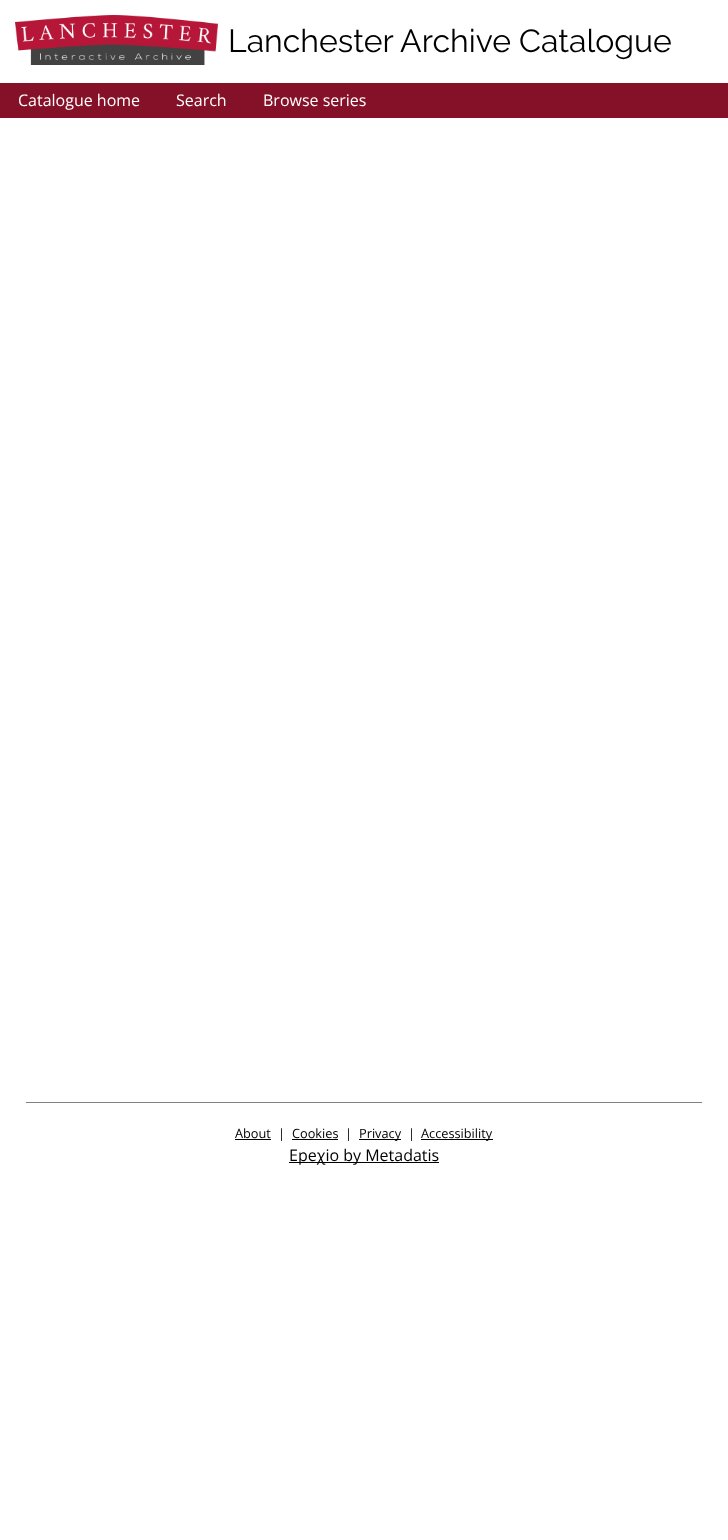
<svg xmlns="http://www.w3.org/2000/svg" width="728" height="1540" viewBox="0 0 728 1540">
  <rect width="100%" height="100%" fill="#ffffff"/>
  <image x="15" y="15" width="203" height="50" href="img1.png"/>
  <text x="228" y="52" font-family="Raleway" font-size="32" font-weight="100" fill="#000000">Lanchester Archive Catalogue</text>
  <rect x="0" y="83" width="728" height="35" fill="#851129"/>
  <text x="18" y="106" font-family="Open Sans" font-size="16" fill="#ffffff">Catalogue home</text>
  <text x="176" y="106" font-family="Open Sans" font-size="16" fill="#ffffff">Search</text>
  <text x="263" y="106" font-family="Open Sans" font-size="16" fill="#ffffff">Browse series</text>
  <rect x="26" y="1102" width="676" height="1" fill="#808080"/>
  <text x="235" y="1138" font-family="Open Sans" font-size="12.75" fill="#000000">About</text>
  <rect x="235" y="1139" width="36" height="1" fill="#000000"/>
  <text x="278" y="1138" font-family="Open Sans" font-size="12.75" fill="#000000">|</text>
  <text x="292" y="1138" font-family="Open Sans" font-size="12.75" fill="#000000">Cookies</text>
  <rect x="292" y="1139" width="46" height="1" fill="#000000"/>
  <text x="345" y="1138" font-family="Open Sans" font-size="12.75" fill="#000000">|</text>
  <rect x="359" y="1139" width="42" height="1" fill="#000000"/>
  <text x="359" y="1138" font-family="Open Sans" font-size="12.75" fill="#000000">Privacy</text>
  <text x="408" y="1138" font-family="Open Sans" font-size="12.75" fill="#000000">|</text>
  <rect x="421" y="1139" width="72" height="1" fill="#000000"/>
  <text x="421" y="1138" font-family="Open Sans" font-size="12.75" fill="#000000">Accessibility</text>
  <rect x="289" y="1162" width="150" height="1" fill="#000000"/>
  <text x="289" y="1161" font-family="Open Sans" font-size="16" fill="#000000">Epeχio by Metadatis</text>
</svg>
